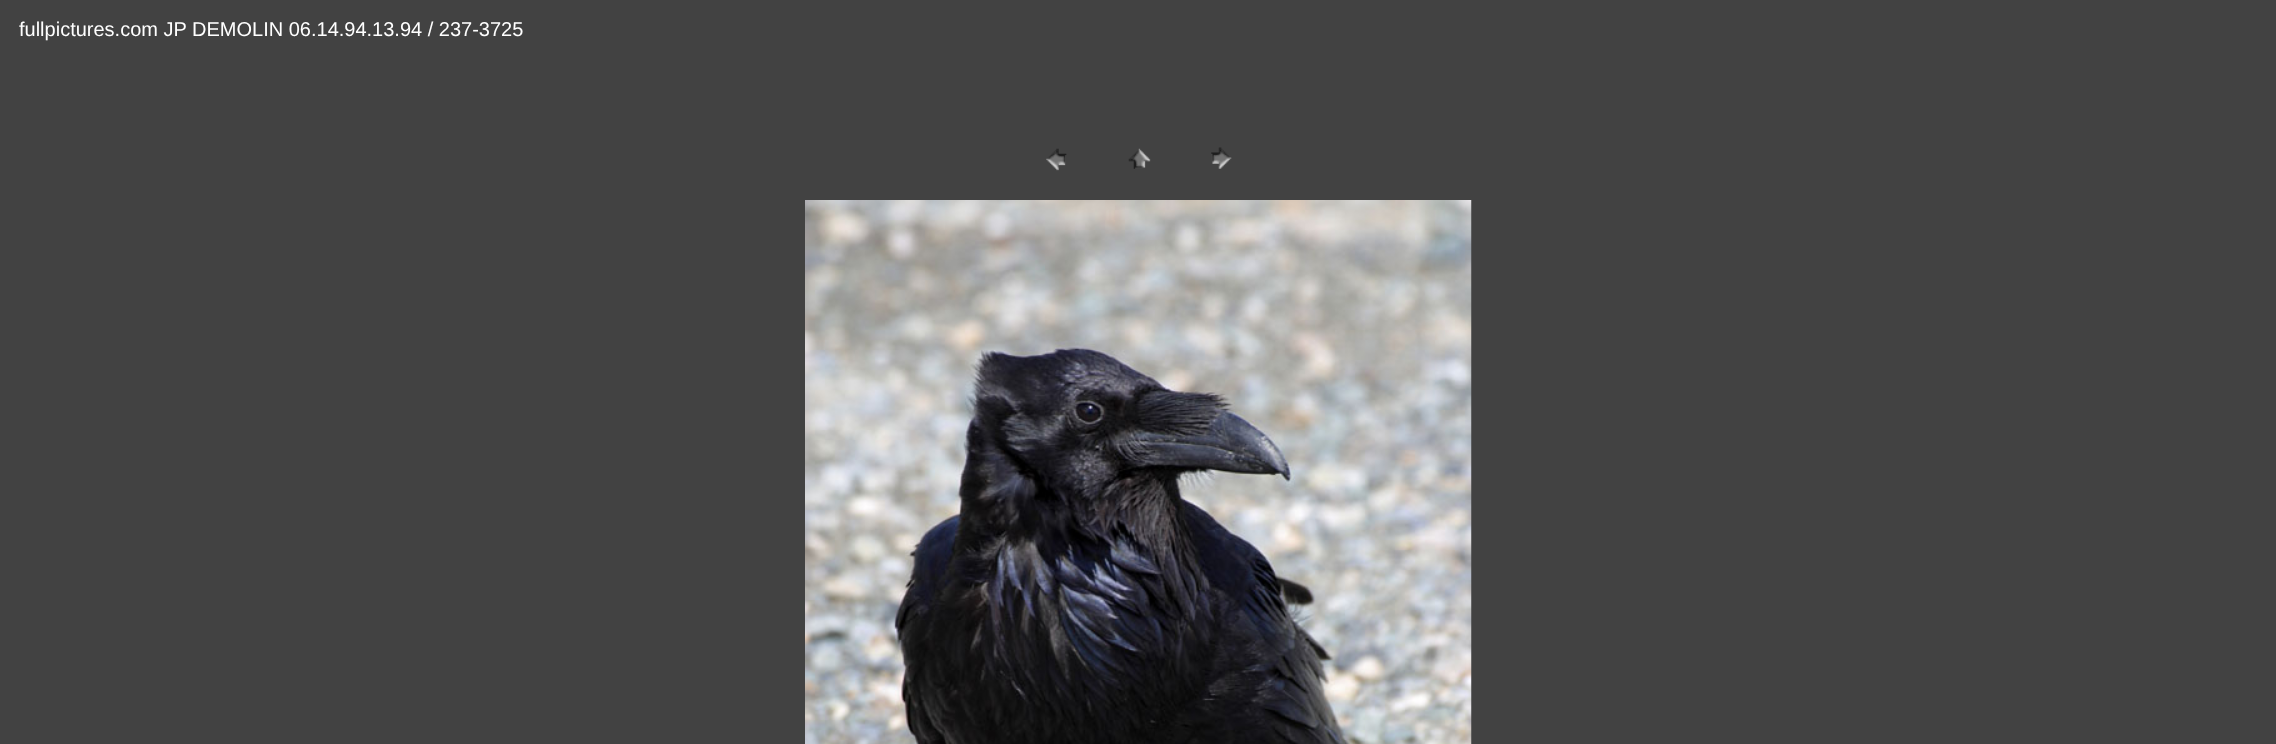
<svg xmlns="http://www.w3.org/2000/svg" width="2276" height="744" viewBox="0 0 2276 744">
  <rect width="100%" height="100%" fill="#424242"/>
  <text x="19" y="36" font-family="Liberation Sans" font-size="20" fill="#ffffff">fullpictures.com JP DEMOLIN 06.14.94.13.94 / 237-3725</text>
  <image x="1046" y="148" width="21" height="23" href="img1.png"/>
  <image x="1128" y="148" width="23" height="21" href="img2.png"/>
  <image x="1211" y="147" width="21" height="22" href="img3.png"/>
  <image x="805" y="200" width="667" height="544" href="img4.png"/>
</svg>
